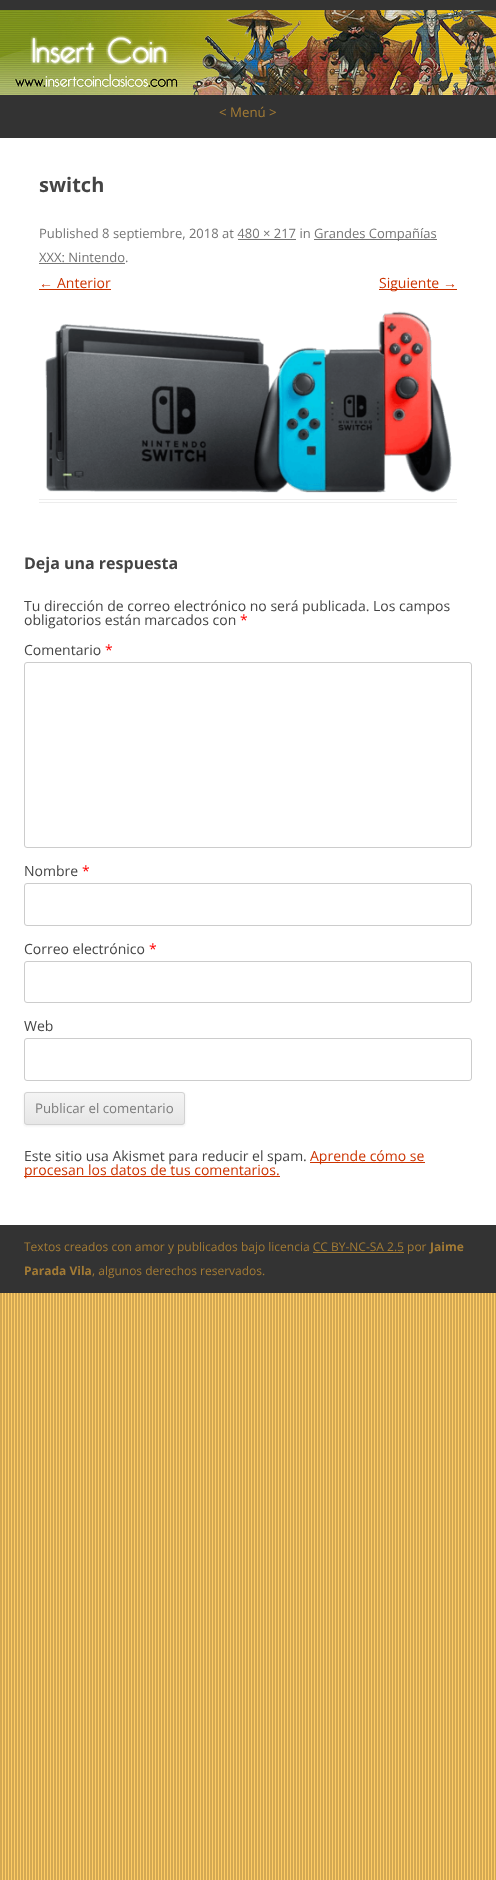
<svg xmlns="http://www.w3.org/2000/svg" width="496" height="1880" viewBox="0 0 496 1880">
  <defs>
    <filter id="blur1" x="-50%" y="-200%" width="200%" height="500%"><feGaussianBlur stdDeviation="1"/></filter>
    <clipPath id="clip1"><rect x="24" y="1092" width="161" height="33" rx="3"/></clipPath>
    <linearGradient id="g1" gradientUnits="userSpaceOnUse" x1="105" y1="1093" x2="105" y2="1124"><stop offset="0" stop-color="#f4f4f4"/><stop offset="1" stop-color="#e6e6e6"/></linearGradient>
  </defs>
  <rect width="100%" height="100%" fill="#ffffff"/>
  <image x="0" y="1293" width="496" height="587" href="img1.png"/>
  <rect x="0" y="0" width="496" height="138" fill="#333333"/>
  <image x="0" y="10" width="496" height="85" href="img2.png"/>
  <text x="219" y="117" font-family="Open Sans" font-size="13.25" fill="#a37b35">&lt; Menú &gt;</text>
  <rect x="39" y="499" width="418" height="1" fill="#ededed"/>
  <rect x="39" y="502" width="418" height="1" fill="#ededed"/>
  <text x="39" y="192" font-family="Open Sans" font-size="20" font-weight="bold" fill="#444444">switch</text>
  <text x="39" y="238" font-family="Open Sans" font-size="13" fill="#757575">Published 8 septiembre, 2018 at 480 × 217 in</text>
  <rect x="314" y="239" width="123" height="1" fill="#757575"/>
  <text x="314" y="238" font-family="Open Sans" font-size="13" fill="#757575">Grandes Compañías</text>
  <rect x="238" y="239" width="58" height="1" fill="#757575"/>
  <text x="39" y="262" font-family="Open Sans" font-size="13" fill="#757575">XXX: Nintendo.</text>
  <rect x="39" y="263" width="86" height="1" fill="#757575"/>
  <text x="39" y="288" font-family="Liberation Sans" font-size="14" fill="#cc3300">←</text>
  <rect x="39" y="289" width="72" height="1" fill="#cc3300"/>
  <text x="57" y="288" font-family="Open Sans" font-size="14" fill="#cc3300">Anterior</text>
  <rect x="379" y="289" width="78" height="1" fill="#cc3300"/>
  <text x="379" y="288" font-family="Open Sans" font-size="14" fill="#cc3300">Siguiente</text>
  <text x="443" y="288" font-family="Liberation Sans" font-size="14" fill="#cc3300">→</text>
  <image x="45" y="311" width="407" height="182" href="img3.png"/>
  <text x="24" y="569" font-family="Open Sans" font-size="16" font-weight="bold" fill="#444444">Deja una respuesta</text>
  <text x="24" y="611" font-family="Open Sans" font-size="14" fill="#444444">Tu dirección de correo electrónico no será publicada. Los campos</text>
  <text x="24" y="625" font-family="Open Sans" font-size="14" fill="#444444">obligatorios están marcados con</text>
  <text x="240" y="625" font-family="Open Sans" font-size="14" fill="#ff0000">*</text>
  <text x="24" y="655" font-family="Open Sans" font-size="14" fill="#444444">Comentario</text>
  <text x="105" y="655" font-family="Open Sans" font-size="14" fill="#ff0000">*</text>
  <rect x="24.5" y="662.5" width="447" height="185" rx="2.5" fill="none" stroke="#cccccc"/>
  <text x="24" y="876" font-family="Open Sans" font-size="14" fill="#444444">Nombre</text>
  <text x="82" y="876" font-family="Open Sans" font-size="14" fill="#ff0000">*</text>
  <rect x="24.5" y="883.5" width="447" height="42" rx="2.5" fill="none" stroke="#cccccc"/>
  <text x="24" y="954" font-family="Open Sans" font-size="14" fill="#444444">Correo electrónico</text>
  <text x="149" y="954" font-family="Open Sans" font-size="14" fill="#ff0000">*</text>
  <rect x="24.5" y="961.5" width="447" height="41" rx="2.5" fill="none" stroke="#cccccc"/>
  <text x="24" y="1031" font-family="Open Sans" font-size="14" fill="#444444">Web</text>
  <rect x="24.5" y="1038.5" width="447" height="42" rx="2.5" fill="none" stroke="#cccccc"/>
  <rect x="24" y="1093" width="161" height="33" rx="3" fill="#404040" fill-opacity="0.1" filter="url(#blur1)"/>
  <g clip-path="url(#clip1)">
    <rect x="24" y="1093" width="161" height="31" fill="url(#g1)"/>
  </g>
  <rect x="24.5" y="1092.5" width="160" height="32" rx="2.5" fill="none" stroke="#d2d2d2"/>
  <text x="35" y="1113" font-family="Open Sans" font-size="13.25" fill="#7c7c7c">Publicar el comentario</text>
  <text x="24" y="1161" font-family="Open Sans" font-size="14" fill="#444444">Este sitio usa Akismet para reducir el spam.</text>
  <rect x="310" y="1162" width="115" height="1" fill="#cc3300"/>
  <text x="310" y="1161" font-family="Open Sans" font-size="14" fill="#cc3300">Aprende cómo se</text>
  <rect x="24" y="1176" width="256" height="1" fill="#cc3300"/>
  <text x="24" y="1175" font-family="Open Sans" font-size="14" fill="#cc3300">procesan los datos de tus comentarios.</text>
  <rect x="0" y="1225" width="496" height="68" fill="#333333"/>
  <text x="24" y="1251" font-family="Open Sans" font-size="12" fill="#a37b35">Textos creados con amor y publicados bajo licencia CC BY-NC-SA 2.5 por</text>
  <text x="430" y="1251" font-family="Open Sans" font-size="12" font-weight="bold" fill="#a37b35">Jaime</text>
  <rect x="313" y="1252" width="91" height="1" fill="#a37b35"/>
  <text x="24" y="1275" font-family="Open Sans" font-size="12" font-weight="bold" fill="#a37b35">Parada Vila</text>
  <text x="92" y="1275" font-family="Open Sans" font-size="12" fill="#a37b35">, algunos derechos reservados.</text>
</svg>
